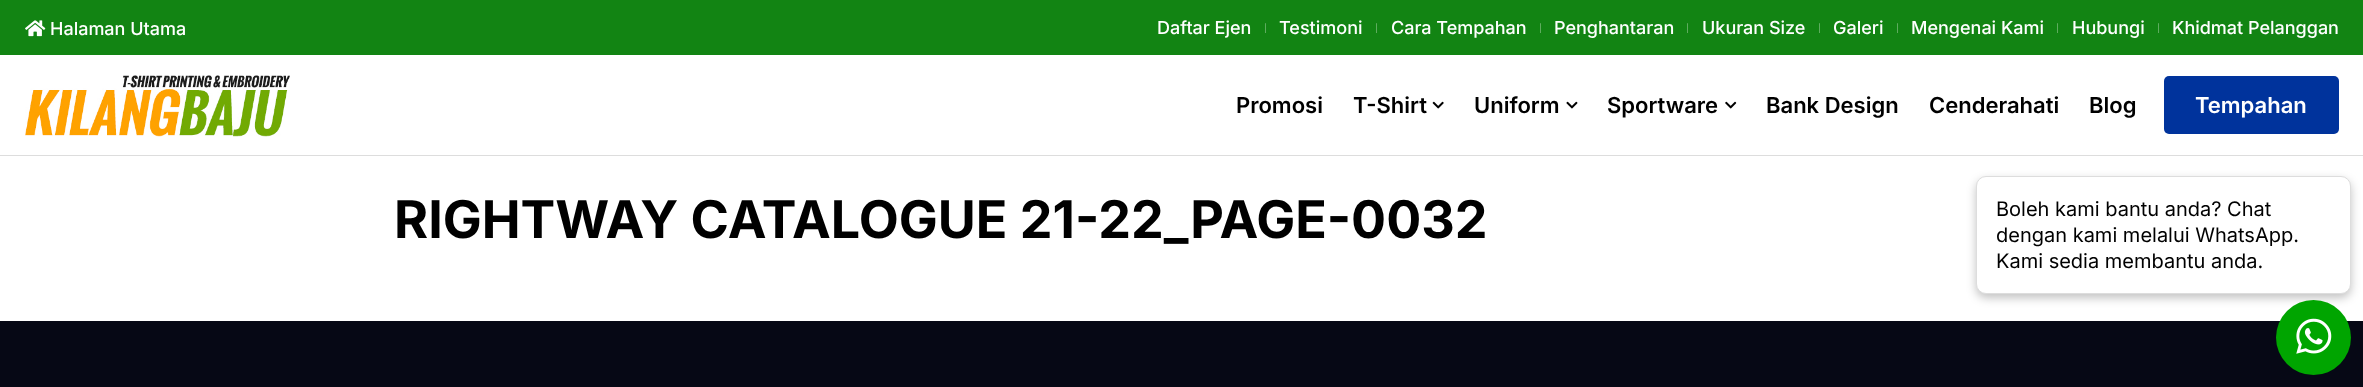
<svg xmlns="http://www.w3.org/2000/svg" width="2363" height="387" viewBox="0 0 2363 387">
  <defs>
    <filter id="blur1" x="-50%" y="-200%" width="200%" height="500%"><feGaussianBlur stdDeviation="5"/></filter>
  </defs>
  <rect width="100%" height="100%" fill="#ffffff"/>
  <rect x="0" y="0" width="2363" height="55" fill="#128413"/>
  <image x="25" y="20" width="21" height="17" href="img1.png"/>
  <text x="50" y="35" font-family="Inter" font-size="18" font-weight="500" fill="#ffffff">Halaman Utama</text>
  <text x="1157" y="34" font-family="Inter" font-size="18" font-weight="500" fill="#ffffff">Daftar Ejen</text>
  <text x="1264" y="31" font-family="Inter" font-size="8" fill="#89c289">|</text>
  <text x="1279" y="34" font-family="Inter" font-size="18" font-weight="500" fill="#ffffff">Testimoni</text>
  <text x="1375" y="31" font-family="Inter" font-size="8" fill="#89c289">|</text>
  <text x="1391" y="34" font-family="Inter" font-size="18" font-weight="500" fill="#ffffff">Cara Tempahan</text>
  <text x="1539" y="31" font-family="Inter" font-size="8" fill="#89c289">|</text>
  <text x="1554" y="34" font-family="Inter" font-size="18" font-weight="500" fill="#ffffff">Penghantaran</text>
  <text x="1686" y="31" font-family="Inter" font-size="8" fill="#89c289">|</text>
  <text x="1702" y="34" font-family="Inter" font-size="18" font-weight="500" fill="#ffffff">Ukuran Size</text>
  <text x="1818" y="31" font-family="Inter" font-size="8" fill="#89c289">|</text>
  <text x="1833" y="34" font-family="Inter" font-size="18" font-weight="500" fill="#ffffff">Galeri</text>
  <text x="1896" y="31" font-family="Inter" font-size="8" fill="#89c289">|</text>
  <text x="1911" y="34" font-family="Inter" font-size="18" font-weight="500" fill="#ffffff">Mengenai Kami</text>
  <text x="2056" y="31" font-family="Inter" font-size="8" fill="#89c289">|</text>
  <text x="2072" y="34" font-family="Inter" font-size="18" font-weight="500" fill="#ffffff">Hubungi</text>
  <text x="2157" y="31" font-family="Inter" font-size="8" fill="#89c289">|</text>
  <text x="2172" y="34" font-family="Inter" font-size="18" font-weight="500" fill="#ffffff">Khidmat Pelanggan</text>
  <rect x="0" y="155" width="2363" height="1" fill="#dddddd"/>
  <image x="25" y="75" width="265" height="62" href="img2.png"/>
  <text x="1236" y="113" font-family="Inter" font-size="22" font-weight="600" fill="#000000">Promosi</text>
  <text x="1353" y="113" font-family="Inter" font-size="22" font-weight="600" fill="#000000">T-Shirt</text>
  <image x="1432" y="101" width="12" height="8" href="img3.png"/>
  <text x="1474" y="113" font-family="Inter" font-size="22" font-weight="600" fill="#000000">Uniform</text>
  <image x="1566" y="101" width="12" height="8" href="img4.png"/>
  <text x="1607" y="113" font-family="Inter" font-size="22" font-weight="600" fill="#000000">Sportware</text>
  <image x="1725" y="101" width="12" height="8" href="img5.png"/>
  <text x="1766" y="113" font-family="Inter" font-size="22" font-weight="600" fill="#000000">Bank Design</text>
  <text x="1929" y="113" font-family="Inter" font-size="22" font-weight="600" fill="#000000">Cenderahati</text>
  <text x="2089" y="113" font-family="Inter" font-size="22" font-weight="600" fill="#000000">Blog</text>
  <rect x="2164" y="76" width="175" height="58" rx="5" fill="#00339c"/>
  <text x="2195" y="113" font-family="Inter" font-size="22" font-weight="600" fill="#ffffff">Tempahan</text>
  <text x="394" y="238" font-family="Inter" font-size="52" font-weight="bold" fill="#000000">RIGHTWAY CATALOGUE 21-22_PAGE-0032</text>
  <rect x="1976" y="180" width="375" height="118" rx="10" fill="#000000" fill-opacity="0.24" filter="url(#blur1)"/>
  <rect x="1976.5" y="176.5" width="374" height="117" rx="9.5" fill="#ffffff" stroke="#dddddd"/>
  <text x="1996" y="216" font-family="Inter" font-size="20" fill="#000000">Boleh kami bantu anda? Chat</text>
  <text x="1996" y="242" font-family="Inter" font-size="20" fill="#000000">dengan kami melalui WhatsApp.</text>
  <text x="1996" y="268" font-family="Inter" font-size="20" fill="#000000">Kami sedia membantu anda.</text>
  <rect x="0" y="321" width="2363" height="66" fill="#060815"/>
  <circle cx="2313.5" cy="337.5" r="37.5" fill="#00a500"/>
  <image x="2296" y="318" width="36" height="36" href="img6.png"/>
</svg>
